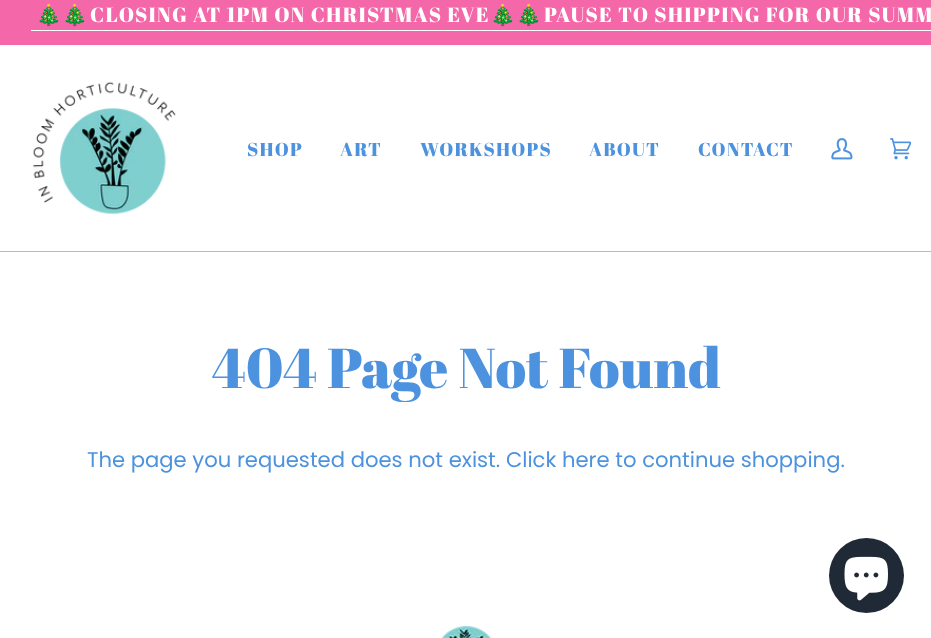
<svg xmlns="http://www.w3.org/2000/svg" width="931" height="638" viewBox="0 0 931 638">
  <rect width="100%" height="100%" fill="#ffffff"/>
  <rect x="0" y="0" width="931" height="45" fill="#f468a9"/>
  <text x="36" y="22" font-family="Noto Color Emoji" font-size="20.5" letter-spacing="1.25" fill="#ffffff">🎄🎄</text>
  <text x="90" y="22" font-family="Abril Fatface" font-size="20.5" letter-spacing="1.25" fill="#ffffff">CLOSING AT 1PM ON CHRISTMAS EVE</text>
  <text x="490" y="22" font-family="Noto Color Emoji" font-size="20.5" letter-spacing="1.25" fill="#ffffff">🎄🎄</text>
  <text x="544" y="22" font-family="Abril Fatface" font-size="20.5" letter-spacing="1.25" fill="#ffffff">PAUSE TO SHIPPING FOR OUR SUMM</text>
  <rect x="31" y="30" width="900" height="1" fill="#ffffff"/>
  <rect x="0" y="251" width="931" height="1" fill="#7ad5d3"/>
  <image x="32" y="81" width="144" height="134" href="img1.png"/>
  <text x="247" y="156" font-family="Abril Fatface" font-size="18.75" letter-spacing="1.25" fill="#4c92de">SHOP</text>
  <text x="340" y="156" font-family="Abril Fatface" font-size="18.75" letter-spacing="1.25" fill="#4c92de">ART</text>
  <text x="420" y="156" font-family="Abril Fatface" font-size="18.75" letter-spacing="1.25" fill="#4c92de">WORKSHOPS</text>
  <text x="589" y="156" font-family="Abril Fatface" font-size="18.75" letter-spacing="1.25" fill="#4c92de">ABOUT</text>
  <text x="698" y="156" font-family="Abril Fatface" font-size="18.75" letter-spacing="1.25" fill="#4c92de">CONTACT</text>
  <image x="831" y="138" width="22" height="22" href="img2.png"/>
  <image x="890" y="138" width="21" height="22" href="img3.png"/>
  <text x="212" y="388" font-family="Abril Fatface" font-size="56.25" fill="#4c92de">404 Page Not Found</text>
  <text x="87" y="467" font-family="Poppins" font-size="21.15" fill="#4c92de">The page you requested does not exist. Click here to continue shopping.</text>
  <circle cx="866.5" cy="575.5" r="37.5" fill="#202a36"/>
  <image x="844" y="556" width="44" height="45" href="img4.png"/>
  <image x="441" y="626" width="51" height="12" href="img5.png"/>
</svg>
